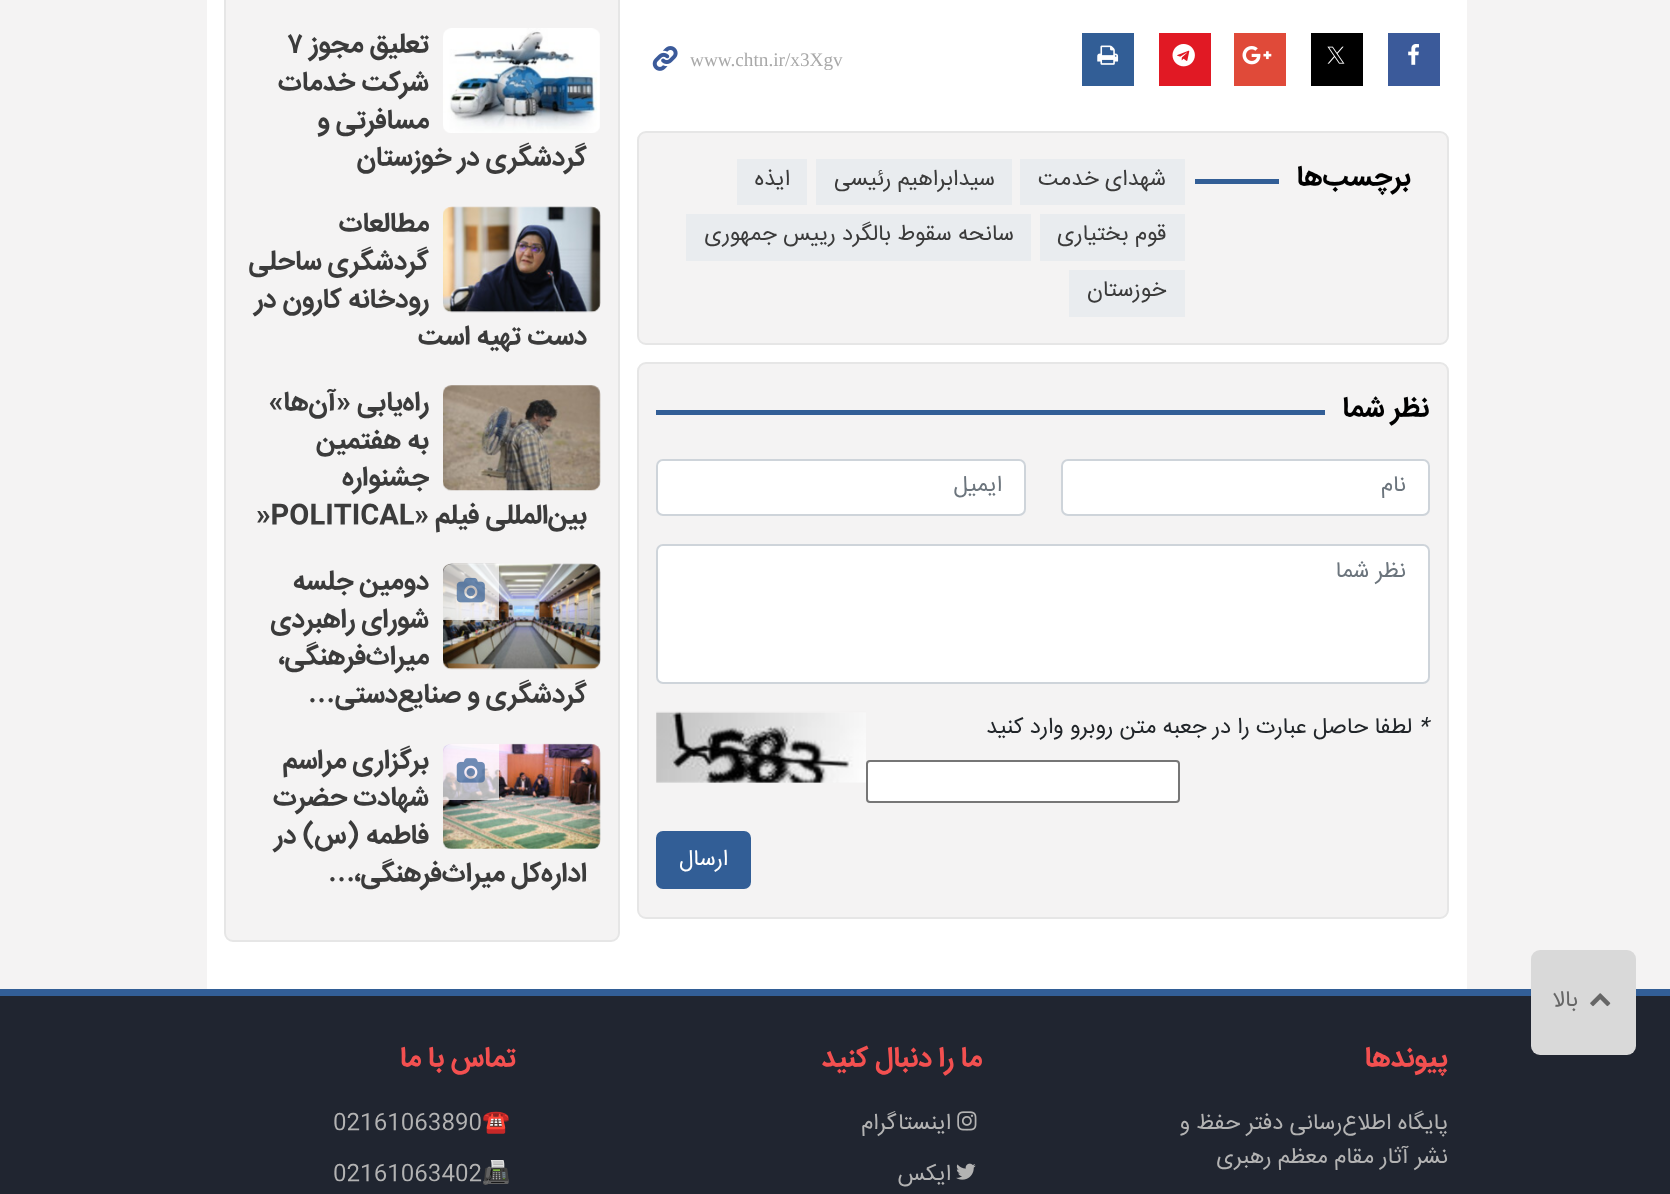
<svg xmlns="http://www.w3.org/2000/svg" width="1670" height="1194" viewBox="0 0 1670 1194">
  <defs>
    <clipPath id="clip1"><rect x="690" y="49" width="381" height="21"/></clipPath>
  </defs>
  <rect width="100%" height="100%" fill="#f4f3f3"/>
  <rect x="207" y="0" width="1260" height="989" fill="#ffffff"/>
  <rect x="1388" y="33" width="52" height="53" fill="#3b5a9a"/>
  <image x="1408" y="44" width="11" height="21" href="img1.png"/>
  <rect x="1311" y="33" width="52" height="53" fill="#000000"/>
  <image x="1327" y="46" width="18" height="18" href="img2.png"/>
  <rect x="1234" y="33" width="52" height="53" fill="#e04a39"/>
  <image x="1242" y="46" width="30" height="19" href="img3.png"/>
  <rect x="1159" y="33" width="52" height="53" fill="#e11924"/>
  <image x="1172" y="44" width="23" height="23" href="img4.png"/>
  <rect x="1082" y="33" width="52" height="53" fill="#325e96"/>
  <image x="1097" y="45" width="22" height="20" href="img5.png"/>
  <g clip-path="url(#clip1)">
    <text x="690" y="66" font-family="Liberation Serif" font-size="19.25" fill="#a9a9a9">www.chtn.ir/x3Xgv</text>
  </g>
  <image x="652" y="46" width="26" height="25" href="img6.png"/>
  <rect x="638" y="132" width="810" height="212" rx="8" fill="#f4f3f3" stroke="#e6e6e6" stroke-width="2"/>
  <text x="1411" y="185" font-family="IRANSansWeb" font-size="28" font-weight="bold" direction="rtl" fill="#000000">برچسب‌ها</text>
  <rect x="1195" y="179" width="84" height="5" fill="#325e96"/>
  <rect x="1020" y="159" width="165" height="46" fill="#e9ecef"/>
  <text x="1166" y="185" font-family="IRANSansWeb" font-size="22.4" direction="rtl" fill="#3b3b3b">شهدای خدمت</text>
  <rect x="816" y="159" width="196" height="46" fill="#e9ecef"/>
  <text x="995" y="185" font-family="IRANSansWeb" font-size="22.4" direction="rtl" fill="#3b3b3b">سیدابراهیم رئیسی</text>
  <rect x="737" y="159" width="70" height="46" fill="#e9ecef"/>
  <text x="790" y="185" font-family="IRANSansWeb" font-size="22.4" direction="rtl" fill="#3b3b3b">ایذه</text>
  <rect x="1040" y="214" width="145" height="47" fill="#e9ecef"/>
  <text x="1166" y="240" font-family="IRANSansWeb" font-size="22.4" direction="rtl" fill="#3b3b3b">قوم بختیاری</text>
  <rect x="686" y="214" width="345" height="47" fill="#e9ecef"/>
  <text x="1014" y="240" font-family="IRANSansWeb" font-size="22.4" direction="rtl" fill="#3b3b3b">سانحه سقوط بالگرد رییس جمهوری</text>
  <rect x="1069" y="270" width="116" height="47" fill="#e9ecef"/>
  <text x="1166" y="296" font-family="IRANSansWeb" font-size="22.4" direction="rtl" fill="#3b3b3b">خوزستان</text>
  <rect x="638" y="363" width="810" height="555" rx="8" fill="#f4f3f3" stroke="#e6e6e6" stroke-width="2"/>
  <text x="1429" y="416" font-family="IRANSansWeb" font-size="28" font-weight="bold" direction="rtl" fill="#000000">نظر شما</text>
  <rect x="656" y="410" width="669" height="5" fill="#325e96"/>
  <rect x="1062" y="460" width="367" height="55" rx="6" fill="#ffffff" stroke="#ced4da" stroke-width="2"/>
  <text x="1406" y="491" font-family="IRANSansWeb" font-size="22.4" direction="rtl" fill="#6c757d">نام</text>
  <rect x="657" y="460" width="368" height="55" rx="6" fill="#ffffff" stroke="#ced4da" stroke-width="2"/>
  <text x="1002" y="491" font-family="IRANSansWeb" font-size="22.4" direction="rtl" fill="#6c757d">ایمیل</text>
  <rect x="657" y="545" width="772" height="138" rx="6" fill="#ffffff" stroke="#ced4da" stroke-width="2"/>
  <text x="1406" y="577" font-family="IRANSansWeb" font-size="22.4" direction="rtl" fill="#6c757d">نظر شما</text>
  <text x="1418" y="733" font-family="IRANSansWeb" font-size="22.4" font-style="italic" fill="#212529">*</text>
  <text x="1412" y="733" font-family="IRANSansWeb" font-size="22.4" direction="rtl" fill="#212529">لطفا حاصل عبارت را در جعبه متن روبرو وارد کنید</text>
  <image x="656" y="711" width="210" height="72" href="img7.png"/>
  <rect x="867" y="761" width="312" height="41" rx="3" fill="#ffffff" stroke="#767676" stroke-width="2"/>
  <rect x="657" y="832" width="93" height="56" rx="6" fill="#325e96" stroke="#325e96" stroke-width="2"/>
  <text x="728" y="865" font-family="IRANSansWeb" font-size="22.4" direction="rtl" fill="#ffffff">ارسال</text>
  <rect x="225" y="-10" width="394" height="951" rx="8" fill="#f4f3f3" stroke="#e6e6e6" stroke-width="2"/>
  <image x="443" y="28" width="157" height="105" href="img8.png"/>
  <text x="429" y="52" font-family="IRANSansWeb" font-size="27" font-weight="bold" direction="rtl" fill="#3b3b3b">تعلیق مجوز</text>
  <text x="287" y="52" font-family="IRANSansWeb" font-size="27" font-weight="bold" fill="#3b3b3b">۷</text>
  <text x="429" y="90" font-family="IRANSansWeb" font-size="27" font-weight="bold" direction="rtl" fill="#3b3b3b">شرکت خدمات</text>
  <text x="429" y="128" font-family="IRANSansWeb" font-size="27" font-weight="bold" direction="rtl" fill="#3b3b3b">مسافرتی و</text>
  <text x="587" y="165" font-family="IRANSansWeb" font-size="27" font-weight="bold" direction="rtl" fill="#3b3b3b">گردشگری در خوزستان</text>
  <image x="443" y="206" width="158" height="107" href="img9.png"/>
  <text x="429" y="231" font-family="IRANSansWeb" font-size="27" font-weight="bold" direction="rtl" fill="#3b3b3b">مطالعات</text>
  <text x="429" y="269" font-family="IRANSansWeb" font-size="27" font-weight="bold" direction="rtl" fill="#3b3b3b">گردشگری ساحلی</text>
  <text x="429" y="307" font-family="IRANSansWeb" font-size="27" font-weight="bold" direction="rtl" fill="#3b3b3b">رودخانه کارون در</text>
  <text x="587" y="344" font-family="IRANSansWeb" font-size="27" font-weight="bold" direction="rtl" fill="#3b3b3b">دست تهیه است</text>
  <image x="443" y="385" width="158" height="106" href="img10.png"/>
  <text x="429" y="410" font-family="IRANSansWeb" font-size="27" font-weight="bold" direction="rtl" fill="#3b3b3b">راه‌یابی «آن‌ها»</text>
  <text x="429" y="448" font-family="IRANSansWeb" font-size="27" font-weight="bold" direction="rtl" fill="#3b3b3b">به هفتمین</text>
  <text x="429" y="485" font-family="IRANSansWeb" font-size="27" font-weight="bold" direction="rtl" fill="#3b3b3b">جشنواره</text>
  <text x="587" y="523" font-family="IRANSansWeb" font-size="27" font-weight="bold" direction="rtl" fill="#3b3b3b">بین‌المللی فیلم «</text>
  <text x="256" y="523" font-family="IRANSansWeb" font-size="27" font-weight="bold" fill="#3b3b3b">»POLITICAL</text>
  <image x="443" y="563" width="158" height="107" href="img11.png"/>
  <path d="M452 564H499V620H443V573C443 568 447 564 452 564Z" fill="#ffffff" fill-opacity="0.7"/>
  <image x="456" y="577" width="29" height="26" href="img12.png"/>
  <text x="429" y="589" font-family="IRANSansWeb" font-size="27" font-weight="bold" direction="rtl" fill="#3b3b3b">دومین جلسه</text>
  <text x="429" y="627" font-family="IRANSansWeb" font-size="27" font-weight="bold" direction="rtl" fill="#3b3b3b">شورای راهبردی</text>
  <text x="429" y="664" font-family="IRANSansWeb" font-size="27" font-weight="bold" direction="rtl" fill="#3b3b3b">میراث‌فرهنگی،</text>
  <text x="587" y="702" font-family="IRANSansWeb" font-size="27" font-weight="bold" direction="rtl" fill="#3b3b3b">گردشگری و صنایع‌دستی</text>
  <text x="335" y="702" font-family="Liberation Serif" font-size="27" font-weight="bold" direction="rtl" fill="#3b3b3b">…</text>
  <image x="443" y="743" width="158" height="106" href="img13.png"/>
  <path d="M452 744H499V800H443V753C443 748 447 744 452 744Z" fill="#ffffff" fill-opacity="0.7"/>
  <image x="456" y="758" width="29" height="25" href="img14.png"/>
  <text x="429" y="768" font-family="IRANSansWeb" font-size="27" font-weight="bold" direction="rtl" fill="#3b3b3b">برگزاری مراسم</text>
  <text x="429" y="805" font-family="IRANSansWeb" font-size="27" font-weight="bold" direction="rtl" fill="#3b3b3b">شهادت حضرت</text>
  <text x="429" y="843" font-family="IRANSansWeb" font-size="27" font-weight="bold" direction="rtl" fill="#3b3b3b">فاطمه (س) در</text>
  <text x="587" y="881" font-family="IRANSansWeb" font-size="27" font-weight="bold" direction="rtl" fill="#3b3b3b">اداره‌کل میراث‌فرهنگی،</text>
  <text x="355" y="881" font-family="Liberation Serif" font-size="27" font-weight="bold" direction="rtl" fill="#3b3b3b">…</text>
  <rect x="0" y="989" width="1670" height="7" fill="#325e96"/>
  <rect x="0" y="996" width="1670" height="198" fill="#202530"/>
  <rect x="1531" y="950" width="105" height="105" rx="9" fill="#d9d9d9"/>
  <image x="1590" y="993" width="21" height="14" href="img15.png"/>
  <text x="1578" y="1006" font-family="IRANSansWeb" font-size="22.4" direction="rtl" fill="#666666">بالا</text>
  <text x="1448" y="1066" font-family="IRANSansWeb" font-size="28" font-weight="bold" direction="rtl" fill="#f35050">پیوندها</text>
  <text x="1448" y="1129" font-family="IRANSansWeb" font-size="22.4" direction="rtl" fill="#b3b3b3">پايگاه اطلاع‌رسانی دفتر حفظ و</text>
  <text x="1448" y="1163" font-family="IRANSansWeb" font-size="22.4" direction="rtl" fill="#b3b3b3">نشر آثار</text>
  <text x="1374" y="1163" font-family="IRANSansWeb" font-size="22.4" direction="rtl" fill="#b3b3b3">مقام معظم رهبری</text>
  <text x="982" y="1066" font-family="IRANSansWeb" font-size="28" font-weight="bold" direction="rtl" fill="#f35050">ما را دنبال کنید</text>
  <image x="957" y="1111" width="20" height="20" href="img16.png"/>
  <text x="951" y="1129" font-family="IRANSansWeb" font-size="22.4" direction="rtl" fill="#b3b3b3">اینستاگرام</text>
  <image x="956" y="1163" width="20" height="17" href="img17.png"/>
  <text x="951" y="1180" font-family="IRANSansWeb" font-size="22.4" direction="rtl" fill="#b3b3b3">ایکس</text>
  <text x="516" y="1066" font-family="IRANSansWeb" font-size="28" font-weight="bold" direction="rtl" fill="#f35050">تماس با ما</text>
  <text x="482" y="1129" font-family="Noto Color Emoji" font-size="22.4" fill="#b3b3b3">☎️</text>
  <text x="333" y="1129" font-family="IRANSansWeb" font-size="22.4" fill="#b3b3b3">02161063890</text>
  <text x="482" y="1180" font-family="Noto Color Emoji" font-size="22.4" fill="#b3b3b3">📠</text>
  <text x="333" y="1180" font-family="IRANSansWeb" font-size="22.4" fill="#b3b3b3">02161063402</text>
</svg>
